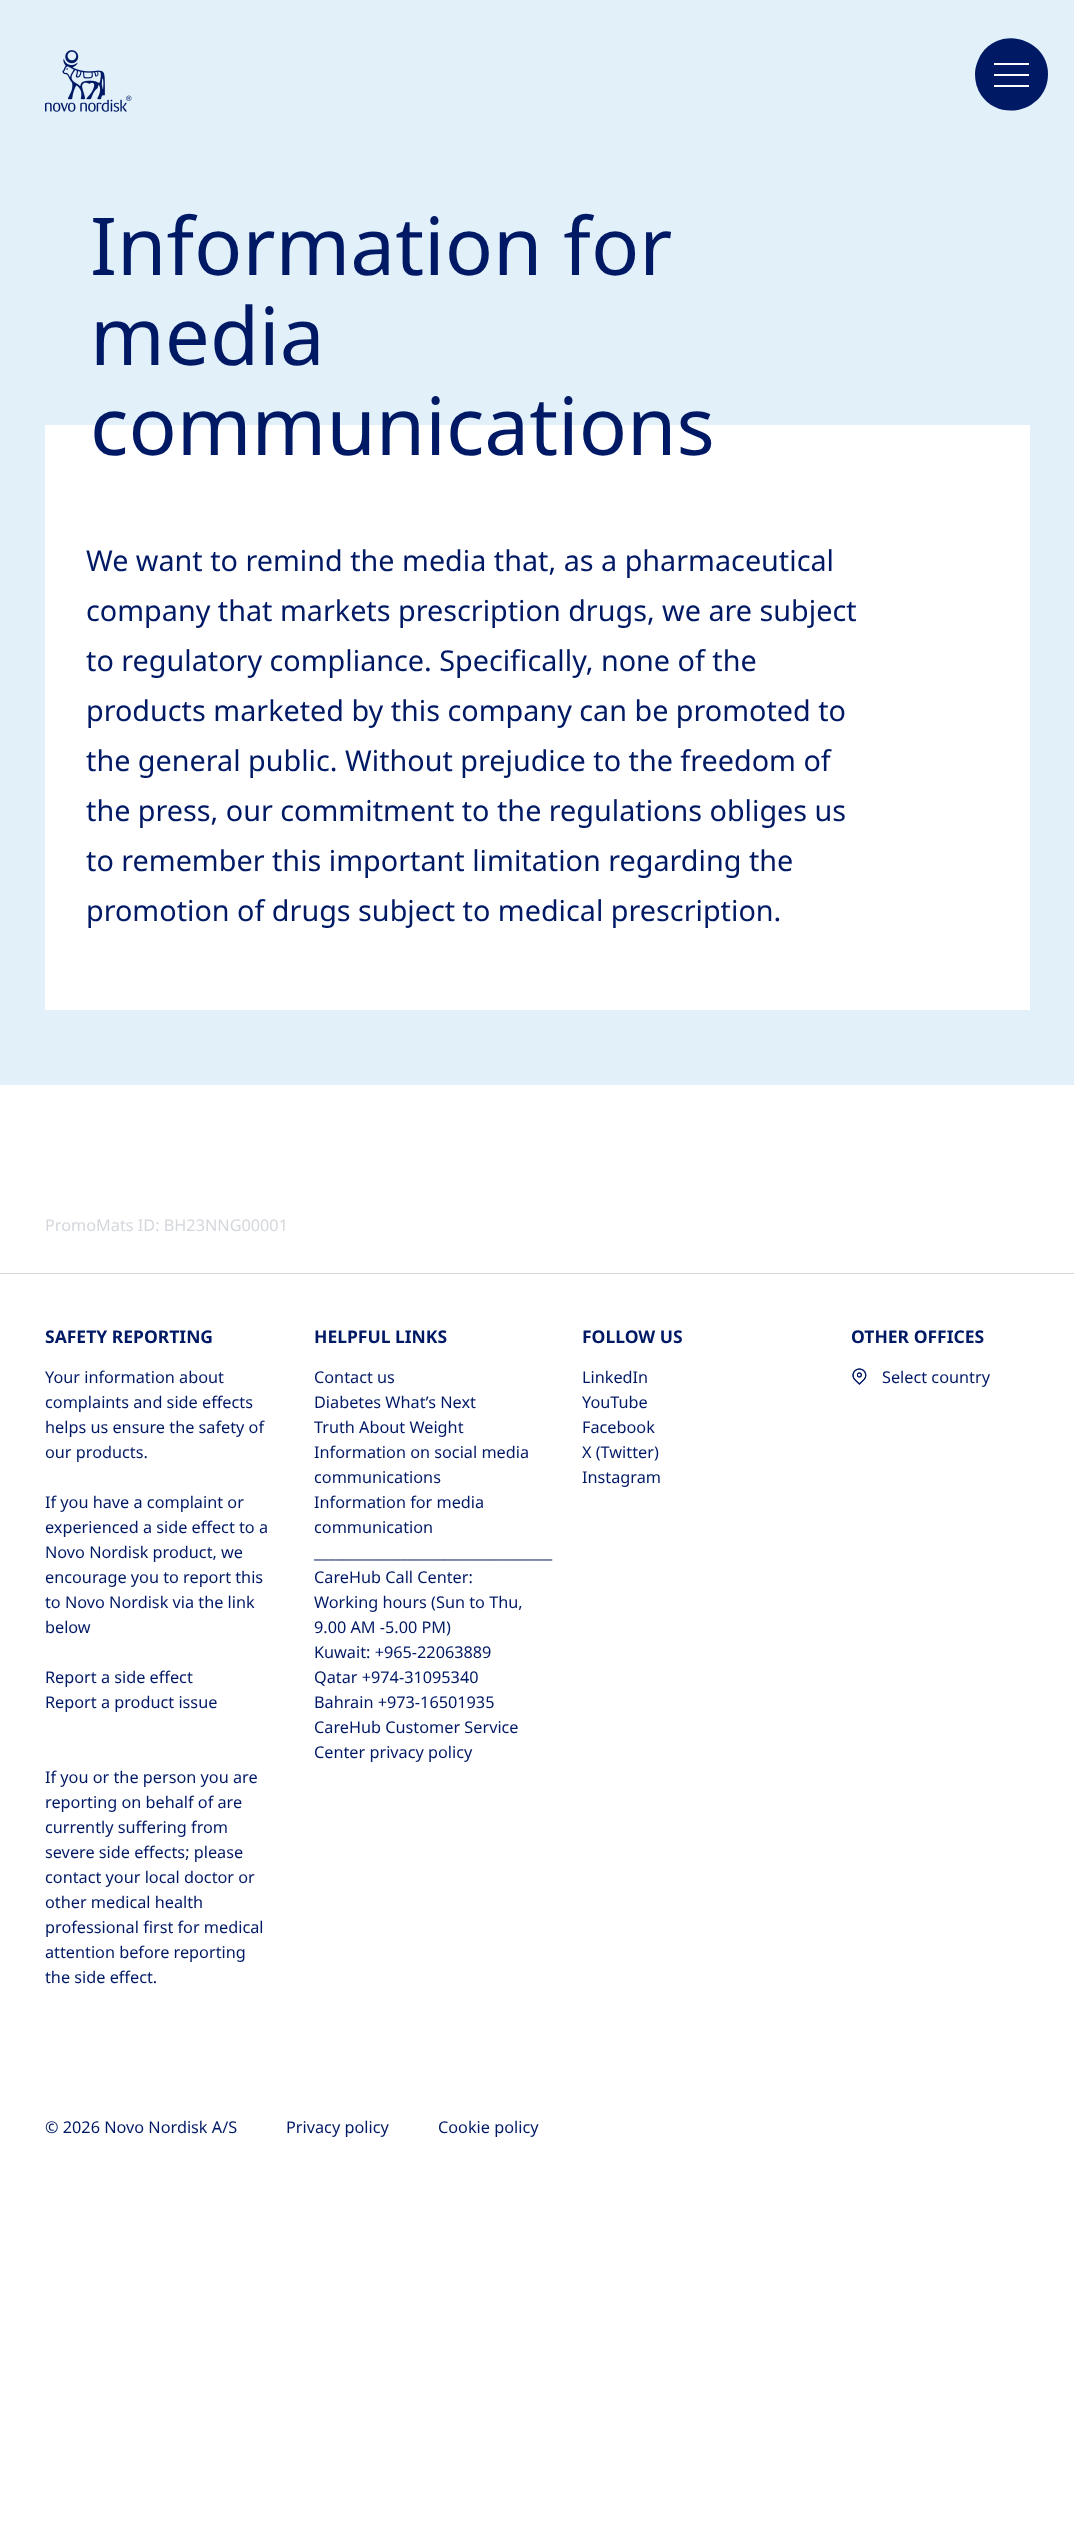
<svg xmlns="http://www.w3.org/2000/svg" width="1074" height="2534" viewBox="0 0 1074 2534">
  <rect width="100%" height="100%" fill="#ffffff"/>
  <rect x="0" y="0" width="1074" height="1085" fill="#e2f0fa"/>
  <image x="45" y="50" width="87" height="62" href="img1.png"/>
  <path d="M1048 74C1048 110 1001 124 981 95C977 89 975 82 975 74C975 67 978 59 982 53C1003 25 1048 40 1048 74Z" fill="#001965"/>
  <rect x="994" y="63" width="35" height="2" fill="#ffffff"/>
  <rect x="994" y="74" width="35" height="2" fill="#ffffff"/>
  <rect x="994" y="85" width="35" height="2" fill="#ffffff"/>
  <text x="90" y="275" font-family="Noto Sans" font-size="80" fill="#001965">Information for</text>
  <text x="90" y="365" font-family="Noto Sans" font-size="80" fill="#001965">media</text>
  <rect x="45" y="425" width="985" height="585" fill="#ffffff"/>
  <text x="90" y="455" font-family="Noto Sans" font-size="80" fill="#001965">communications</text>
  <text x="86" y="571" font-family="Noto Sans" font-size="28.75" fill="#001965">We want to remind the media that, as a pharmaceutical</text>
  <text x="86" y="621" font-family="Noto Sans" font-size="28.75" fill="#001965">company that markets prescription drugs, we are subject</text>
  <text x="86" y="671" font-family="Noto Sans" font-size="28.75" fill="#001965">to regulatory compliance. Specifically, none of the</text>
  <text x="86" y="721" font-family="Noto Sans" font-size="28.75" fill="#001965">products marketed by this company can be promoted to</text>
  <text x="86" y="771" font-family="Noto Sans" font-size="28.75" fill="#001965">the general public. Without prejudice to the freedom of</text>
  <text x="86" y="821" font-family="Noto Sans" font-size="28.75" fill="#001965">the press, our commitment to the regulations obliges us</text>
  <text x="86" y="871" font-family="Noto Sans" font-size="28.75" fill="#001965">to remember this important limitation regarding the</text>
  <text x="86" y="921" font-family="Noto Sans" font-size="28.75" fill="#001965">promotion of drugs subject to medical prescription.</text>
  <rect x="0" y="1273" width="1074" height="1" fill="#d4d7dc"/>
  <text x="45" y="1231" font-family="Noto Sans" font-size="16.25" fill="#d4d7dc">PromoMats ID: BH23NNG00001</text>
  <text x="45" y="1343" font-family="Noto Sans" font-size="17.5" font-weight="bold" fill="#001965">SAFETY REPORTING</text>
  <text x="45" y="1383" font-family="Noto Sans" font-size="16.25" fill="#001965">Your information about</text>
  <text x="45" y="1408" font-family="Noto Sans" font-size="16.25" fill="#001965">complaints and side effects</text>
  <text x="45" y="1433" font-family="Noto Sans" font-size="16.25" fill="#001965">helps us ensure the safety of</text>
  <text x="45" y="1458" font-family="Noto Sans" font-size="16.25" fill="#001965">our products.</text>
  <text x="45" y="1508" font-family="Noto Sans" font-size="16.25" fill="#001965">If you have a complaint or</text>
  <text x="45" y="1533" font-family="Noto Sans" font-size="16.25" fill="#001965">experienced a side effect to a</text>
  <text x="45" y="1558" font-family="Noto Sans" font-size="16.25" fill="#001965">Novo Nordisk product, we</text>
  <text x="45" y="1583" font-family="Noto Sans" font-size="16.25" fill="#001965">encourage you to report this</text>
  <text x="45" y="1608" font-family="Noto Sans" font-size="16.25" fill="#001965">to Novo Nordisk via the link</text>
  <text x="45" y="1633" font-family="Noto Sans" font-size="16.25" fill="#001965">below</text>
  <text x="45" y="1683" font-family="Noto Sans" font-size="16.25" fill="#001965">Report a side effect</text>
  <text x="45" y="1708" font-family="Noto Sans" font-size="16.25" fill="#001965">Report a product issue</text>
  <text x="45" y="1783" font-family="Noto Sans" font-size="16.25" fill="#001965">If you or the person you are</text>
  <text x="45" y="1808" font-family="Noto Sans" font-size="16.25" fill="#001965">reporting on behalf of are</text>
  <text x="45" y="1833" font-family="Noto Sans" font-size="16.25" fill="#001965">currently suffering from</text>
  <text x="45" y="1858" font-family="Noto Sans" font-size="16.25" fill="#001965">severe side effects; please</text>
  <text x="45" y="1883" font-family="Noto Sans" font-size="16.25" fill="#001965">contact your local doctor or</text>
  <text x="45" y="1908" font-family="Noto Sans" font-size="16.25" fill="#001965">other medical health</text>
  <text x="45" y="1933" font-family="Noto Sans" font-size="16.25" fill="#001965">professional first for medical</text>
  <text x="45" y="1958" font-family="Noto Sans" font-size="16.25" fill="#001965">attention before reporting</text>
  <text x="45" y="1983" font-family="Noto Sans" font-size="16.25" fill="#001965">the side effect.</text>
  <text x="314" y="1343" font-family="Noto Sans" font-size="17.5" font-weight="bold" fill="#001965">HELPFUL LINKS</text>
  <text x="314" y="1383" font-family="Noto Sans" font-size="16.25" fill="#001965">Contact us</text>
  <text x="314" y="1408" font-family="Noto Sans" font-size="16.25" fill="#001965">Diabetes What’s Next</text>
  <text x="314" y="1433" font-family="Noto Sans" font-size="16.25" fill="#001965">Truth About Weight</text>
  <text x="314" y="1458" font-family="Noto Sans" font-size="16.25" fill="#001965">Information on social media</text>
  <text x="314" y="1483" font-family="Noto Sans" font-size="16.25" fill="#001965">communications</text>
  <text x="314" y="1508" font-family="Noto Sans" font-size="16.25" fill="#001965">Information for media</text>
  <text x="314" y="1533" font-family="Noto Sans" font-size="16.25" fill="#001965">communication</text>
  <text x="314" y="1558" font-family="Noto Sans" font-size="16.25" fill="#001965">_________________________________</text>
  <text x="314" y="1583" font-family="Noto Sans" font-size="16.25" fill="#001965">CareHub Call Center:</text>
  <text x="314" y="1608" font-family="Noto Sans" font-size="16.25" fill="#001965">Working hours (Sun to Thu,</text>
  <text x="314" y="1633" font-family="Noto Sans" font-size="16.25" fill="#001965">9.00 AM -5.00 PM)</text>
  <text x="314" y="1658" font-family="Noto Sans" font-size="16.25" fill="#001965">Kuwait: +965-22063889</text>
  <text x="314" y="1683" font-family="Noto Sans" font-size="16.25" fill="#001965">Qatar +974-31095340</text>
  <text x="314" y="1708" font-family="Noto Sans" font-size="16.25" fill="#001965">Bahrain +973-16501935</text>
  <text x="314" y="1733" font-family="Noto Sans" font-size="16.25" fill="#001965">CareHub Customer Service</text>
  <text x="314" y="1758" font-family="Noto Sans" font-size="16.25" fill="#001965">Center privacy policy</text>
  <text x="582" y="1343" font-family="Noto Sans" font-size="17.5" font-weight="bold" fill="#001965">FOLLOW US</text>
  <text x="582" y="1383" font-family="Noto Sans" font-size="16.25" fill="#001965">LinkedIn</text>
  <text x="582" y="1408" font-family="Noto Sans" font-size="16.25" fill="#001965">YouTube</text>
  <text x="582" y="1433" font-family="Noto Sans" font-size="16.25" fill="#001965">Facebook</text>
  <text x="582" y="1458" font-family="Noto Sans" font-size="16.25" fill="#001965">X (Twitter)</text>
  <text x="582" y="1483" font-family="Noto Sans" font-size="16.25" fill="#001965">Instagram</text>
  <text x="851" y="1343" font-family="Noto Sans" font-size="17.5" font-weight="bold" fill="#001965">OTHER OFFICES</text>
  <image x="852" y="1368" width="15" height="17" href="img2.png"/>
  <image x="856" y="1372" width="6" height="6" href="img4.png"/>
  <image x="852" y="1368" width="15" height="17" href="img3.png"/>
  <image x="856" y="1372" width="6" height="6" href="img5.png"/>
  <text x="882" y="1383" font-family="Noto Sans" font-size="16.25" fill="#001965">Select country</text>
  <text x="45" y="2133" font-family="Noto Sans" font-size="16.25" fill="#001965">© 2026 Novo Nordisk A/S</text>
  <text x="286" y="2133" font-family="Noto Sans" font-size="16.25" fill="#001965">Privacy policy</text>
  <text x="438" y="2133" font-family="Noto Sans" font-size="16.25" fill="#001965">Cookie policy</text>
</svg>
